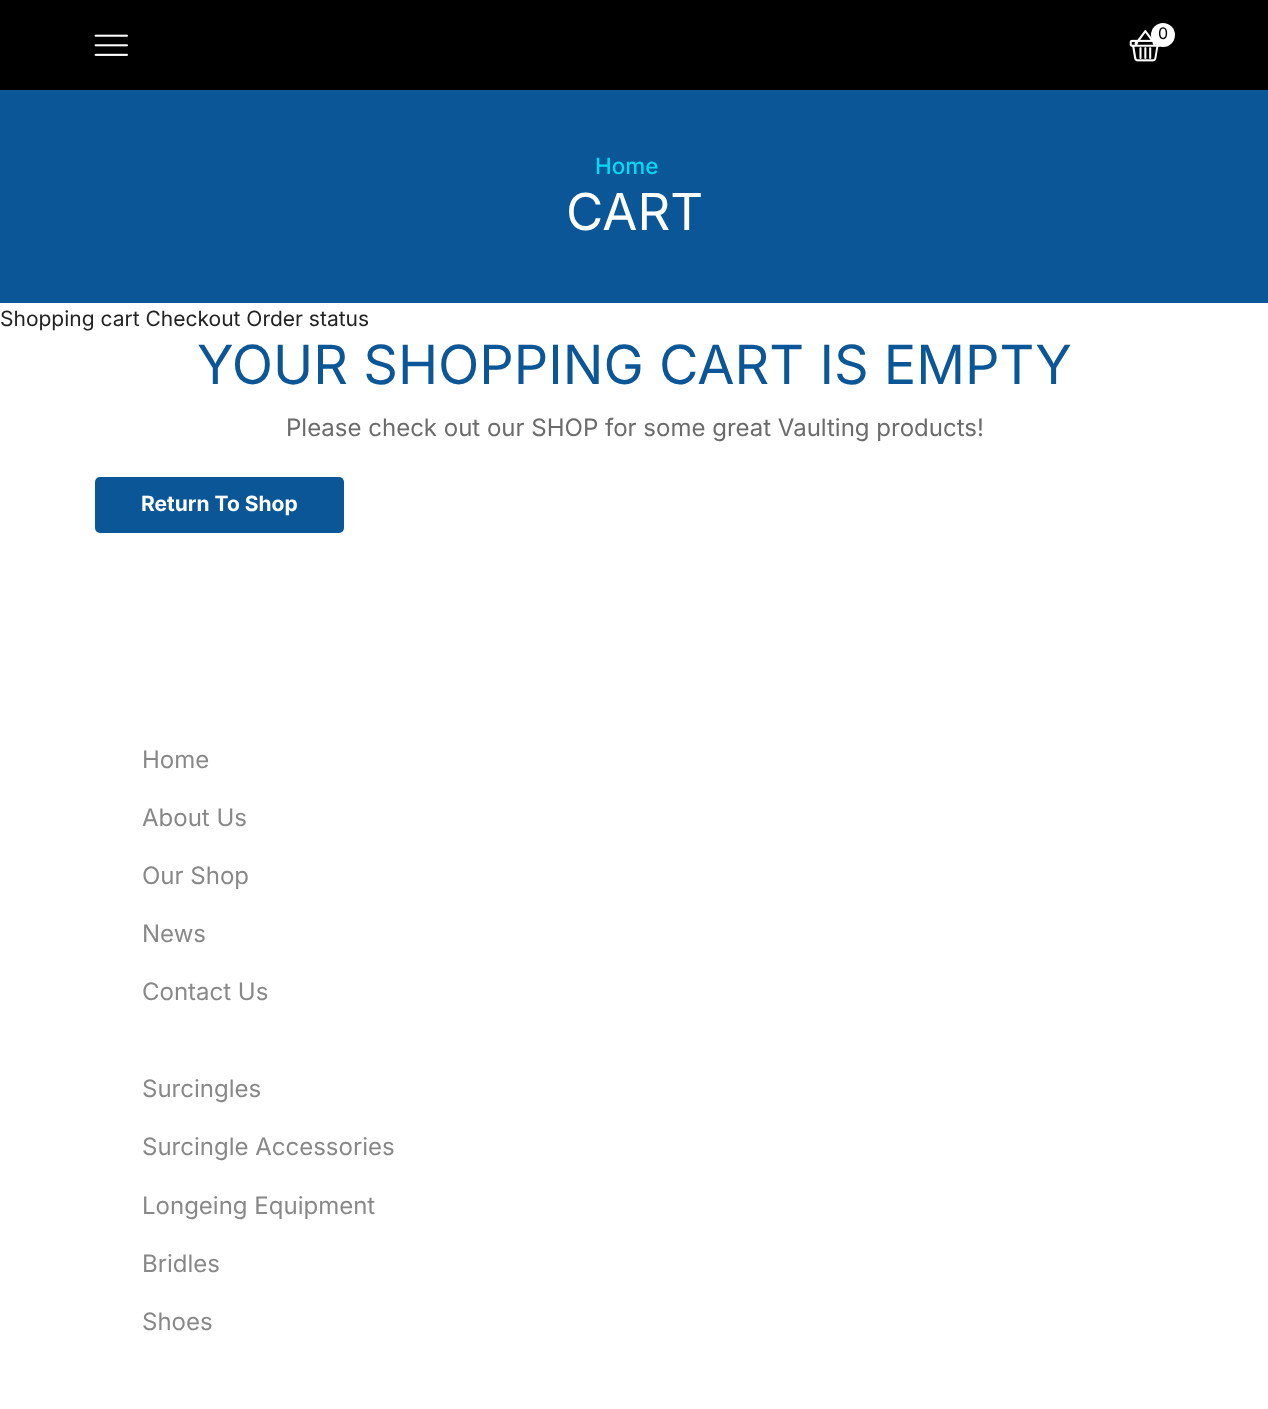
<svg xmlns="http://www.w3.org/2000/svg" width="1268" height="1409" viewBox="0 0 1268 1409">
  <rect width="100%" height="100%" fill="#ffffff"/>
  <rect x="0" y="0" width="1268" height="90" fill="#000000"/>
  <image x="94" y="34" width="34" height="22" href="img1.png"/>
  <image x="1129" y="30" width="31" height="32" href="img2.png"/>
  <circle cx="1163" cy="35" r="12" fill="#ffffff"/>
  <text x="1158" y="39" font-family="Inter" font-size="16" fill="#000000">0</text>
  <rect x="0" y="90" width="1268" height="213" fill="#0b5697"/>
  <text x="595" y="174" font-family="Inter" font-size="22.5" font-weight="500" fill="#04daf2">Home</text>
  <text x="566" y="230" font-family="Inter" font-size="51" fill="#ffffff">CART</text>
  <text x="0" y="326" font-family="Inter" font-size="21" fill="#222222">Shopping cart Checkout Order status</text>
  <text x="197" y="384" font-family="Inter" font-size="54" fill="#0b5697">YOUR SHOPPING CART IS EMPTY</text>
  <text x="286" y="436" font-family="Inter" font-size="24" fill="#6b6b6b">Please check out our SHOP for some great Vaulting products!</text>
  <rect x="95" y="477" width="249" height="56" rx="5" fill="#0b5697"/>
  <text x="141" y="511" font-family="Inter" font-size="21" font-weight="bold" fill="#ffffff">Return To Shop</text>
  <text x="142" y="768" font-family="Inter" font-size="24" fill="#888888">Home</text>
  <text x="142" y="826" font-family="Inter" font-size="24" fill="#888888">About Us</text>
  <text x="142" y="884" font-family="Inter" font-size="24" fill="#888888">Our Shop</text>
  <text x="142" y="942" font-family="Inter" font-size="24" fill="#888888">News</text>
  <text x="142" y="1000" font-family="Inter" font-size="24" fill="#888888">Contact Us</text>
  <text x="142" y="1097" font-family="Inter" font-size="24" fill="#888888">Surcingles</text>
  <text x="142" y="1155" font-family="Inter" font-size="24" fill="#888888">Surcingle Accessories</text>
  <text x="142" y="1214" font-family="Inter" font-size="24" fill="#888888">Longeing Equipment</text>
  <text x="142" y="1272" font-family="Inter" font-size="24" fill="#888888">Bridles</text>
  <text x="142" y="1330" font-family="Inter" font-size="24" fill="#888888">Shoes</text>
</svg>
